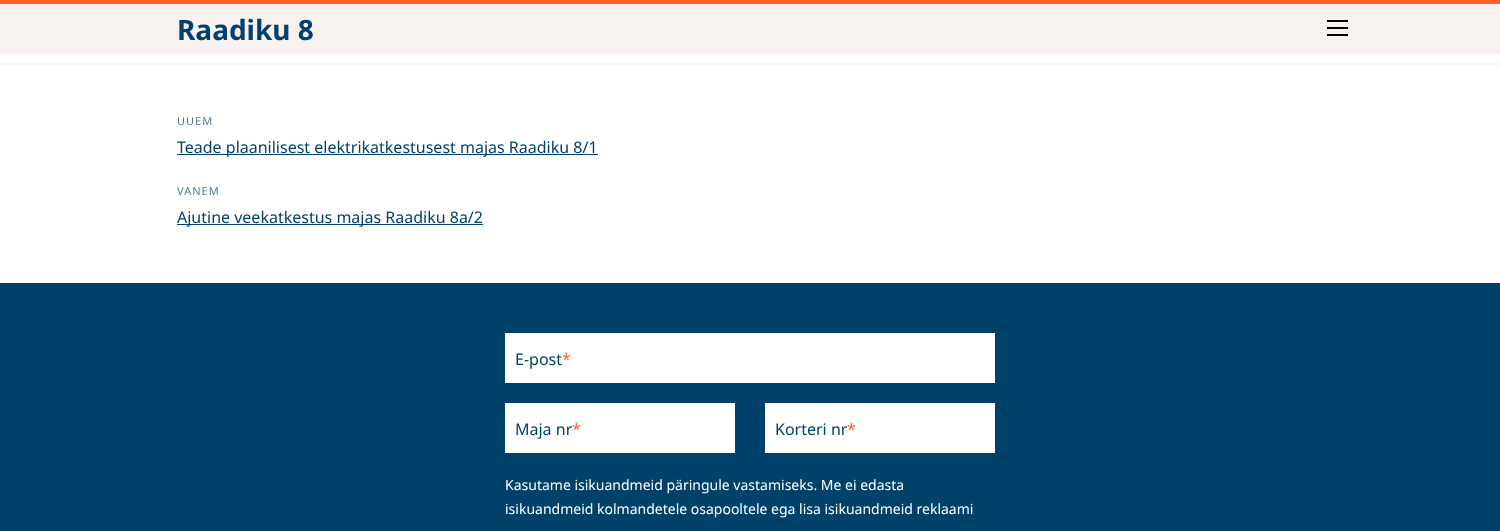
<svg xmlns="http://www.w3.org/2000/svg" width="1500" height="531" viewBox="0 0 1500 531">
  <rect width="100%" height="100%" fill="#ffffff"/>
  <rect x="0" y="4" width="1500" height="50" fill="#f7f2f0"/>
  <rect x="0" y="0" width="1500" height="4" fill="#fe5f2f"/>
  <text x="177" y="40" font-family="Noto Sans" font-size="28" font-weight="bold" fill="#00406c">Raadiku 8</text>
  <rect x="1327" y="20" width="21" height="2" fill="#000000"/>
  <rect x="1327" y="27" width="21" height="2" fill="#000000"/>
  <rect x="1327" y="34" width="21" height="2" fill="#000000"/>
  <rect x="0" y="63" width="1500" height="2" fill="#f7f2f0"/>
  <text x="177" y="125" font-family="Noto Sans" font-size="11" letter-spacing="1" fill="#4d7998">UUEM</text>
  <rect x="177" y="154" width="421" height="1" fill="#00406c"/>
  <text x="177" y="153" font-family="Noto Sans" font-size="16" fill="#00406c">Teade plaanilisest elektrikatkestusest majas Raadiku 8/1</text>
  <text x="177" y="195" font-family="Noto Sans" font-size="11" letter-spacing="1" fill="#4d7998">VANEM</text>
  <rect x="177" y="224" width="306" height="1" fill="#00406c"/>
  <text x="177" y="223" font-family="Noto Sans" font-size="16" fill="#00406c">Ajutine veekatkestus majas Raadiku 8a/2</text>
  <rect x="0" y="283" width="1500" height="248" fill="#00416a"/>
  <rect x="505" y="333" width="490" height="50" fill="#ffffff"/>
  <text x="515" y="365" font-family="Noto Sans" font-size="16" fill="#00406c">E-post</text>
  <text x="562" y="365" font-family="Noto Sans" font-size="16" fill="#fe5f2f">*</text>
  <rect x="505" y="403" width="230" height="50" fill="#ffffff"/>
  <text x="515" y="435" font-family="Noto Sans" font-size="16" fill="#00406c">Maja nr</text>
  <text x="572" y="435" font-family="Noto Sans" font-size="16" fill="#fe5f2f">*</text>
  <rect x="765" y="403" width="230" height="50" fill="#ffffff"/>
  <text x="775" y="435" font-family="Noto Sans" font-size="16" fill="#00406c">Korteri nr</text>
  <text x="847" y="435" font-family="Noto Sans" font-size="16" fill="#fe5f2f">*</text>
  <text x="505" y="490" font-family="Noto Sans" font-size="14" fill="#ffffff">Kasutame isikuandmeid päringule vastamiseks. Me ei edasta</text>
  <text x="505" y="514" font-family="Noto Sans" font-size="14" fill="#ffffff">isikuandmeid kolmandetele osapooltele ega lisa isikuandmeid reklaami</text>
</svg>
